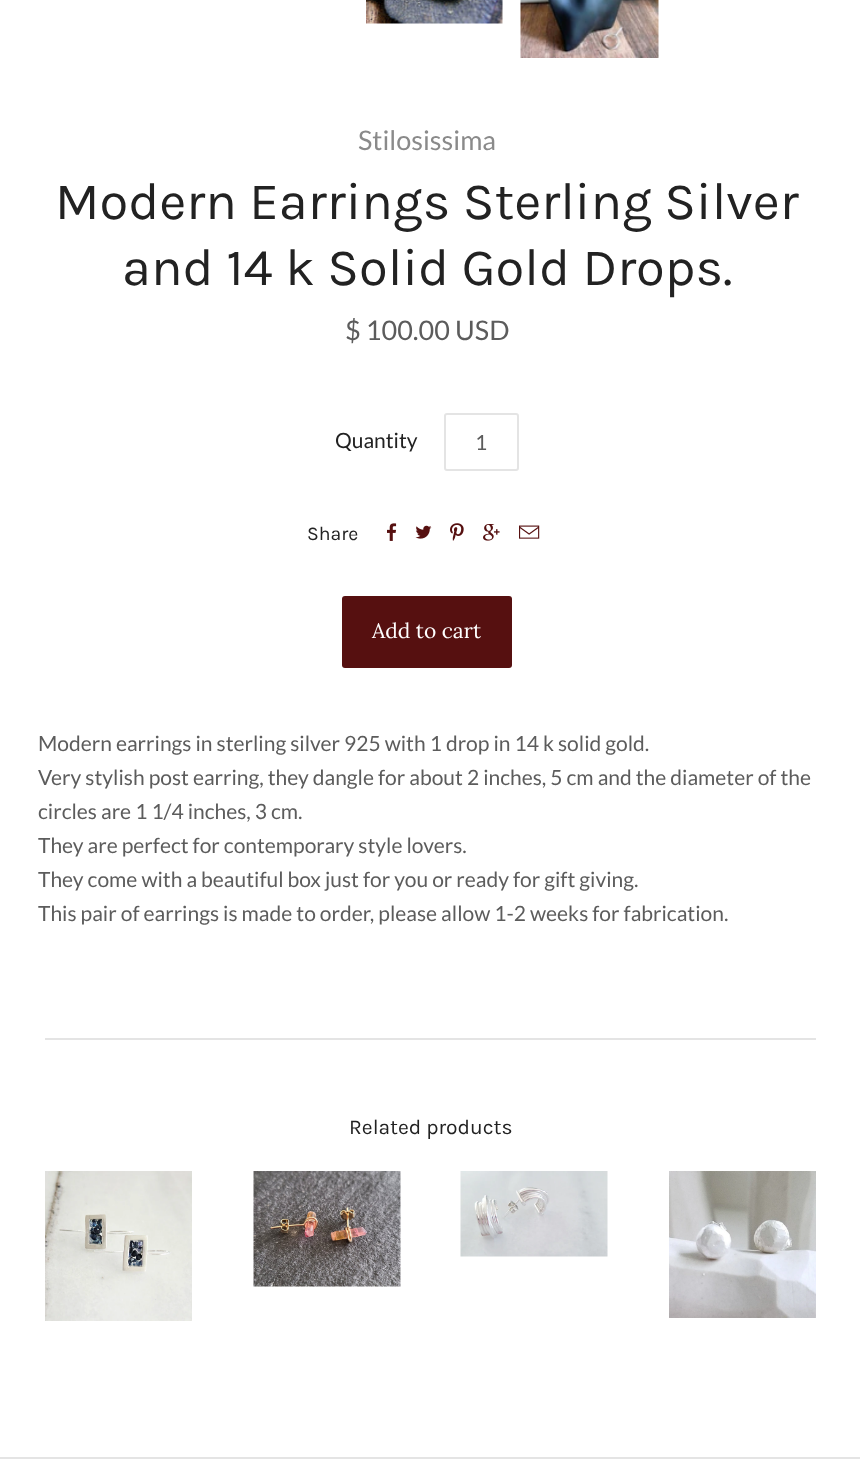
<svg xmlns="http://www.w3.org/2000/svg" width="860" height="1474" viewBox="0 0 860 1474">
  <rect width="100%" height="100%" fill="#ffffff"/>
  <image x="366" y="0" width="137" height="24" href="img1.png"/>
  <image x="520" y="0" width="139" height="58" href="img2.png"/>
  <text x="358" y="150" font-family="Lato" font-size="27" fill="#8a8a8a">Stilosissima</text>
  <text x="55" y="219" font-family="Karla" font-size="52.5" fill="#222222">Modern Earrings Sterling Silver</text>
  <text x="122" y="285" font-family="Karla" font-size="52.5" fill="#222222">and 14 k Solid Gold Drops.</text>
  <text x="345" y="340" font-family="Lato" font-size="27" fill="#5c5c5c">$ 100.00 USD</text>
  <text x="335" y="448" font-family="Lato" font-size="21" fill="#222222">Quantity</text>
  <rect x="445" y="414" width="73" height="56" rx="2" fill="none" stroke="#e4e4e4" stroke-width="2"/>
  <text x="475" y="450" font-family="Lato" font-size="21" fill="#5c5c5c">1</text>
  <text x="307" y="540" font-family="Karla" font-size="19.5" fill="#222222">Share</text>
  <image x="387" y="523" width="10" height="18" href="img3.png"/>
  <image x="415" y="525" width="17" height="14" href="img4.png"/>
  <image x="450" y="523" width="14" height="18" href="img5.png"/>
  <image x="483" y="524" width="17" height="17" href="img6.png"/>
  <image x="519" y="525" width="21" height="14" href="img7.png"/>
  <rect x="342" y="596" width="170" height="72" rx="3" fill="#561010"/>
  <text x="372" y="638" font-family="Lora" font-size="21" fill="#ffffff">Add to cart</text>
  <text x="38" y="751" font-family="Lato" font-size="21" fill="#5c5c5c">Modern earrings in sterling silver 925 with 1 drop in 14 k solid gold.</text>
  <text x="38" y="785" font-family="Lato" font-size="21" fill="#5c5c5c">Very stylish post earring, they dangle for about 2 inches, 5 cm and the diameter of the</text>
  <text x="38" y="819" font-family="Lato" font-size="21" fill="#5c5c5c">circles are 1 1/4 inches, 3 cm.</text>
  <text x="38" y="853" font-family="Lato" font-size="21" fill="#5c5c5c">They are perfect for contemporary style lovers.</text>
  <text x="38" y="887" font-family="Lato" font-size="21" fill="#5c5c5c">They come with a beautiful box just for you or ready for gift giving.</text>
  <text x="38" y="921" font-family="Lato" font-size="21" fill="#5c5c5c">This pair of earrings is made to order, please allow 1-2 weeks for fabrication.</text>
  <rect x="45" y="1038" width="771" height="2" fill="#e4e4e4"/>
  <text x="349" y="1134" font-family="Karla" font-size="21" fill="#222222">Related products</text>
  <image x="45" y="1171" width="147" height="150" href="img8.png"/>
  <image x="253" y="1171" width="148" height="116" href="img9.png"/>
  <image x="460" y="1171" width="148" height="86" href="img10.png"/>
  <image x="669" y="1171" width="147" height="147" href="img11.png"/>
  <rect x="0" y="1457" width="860" height="2" fill="#e4e4e4"/>
</svg>
